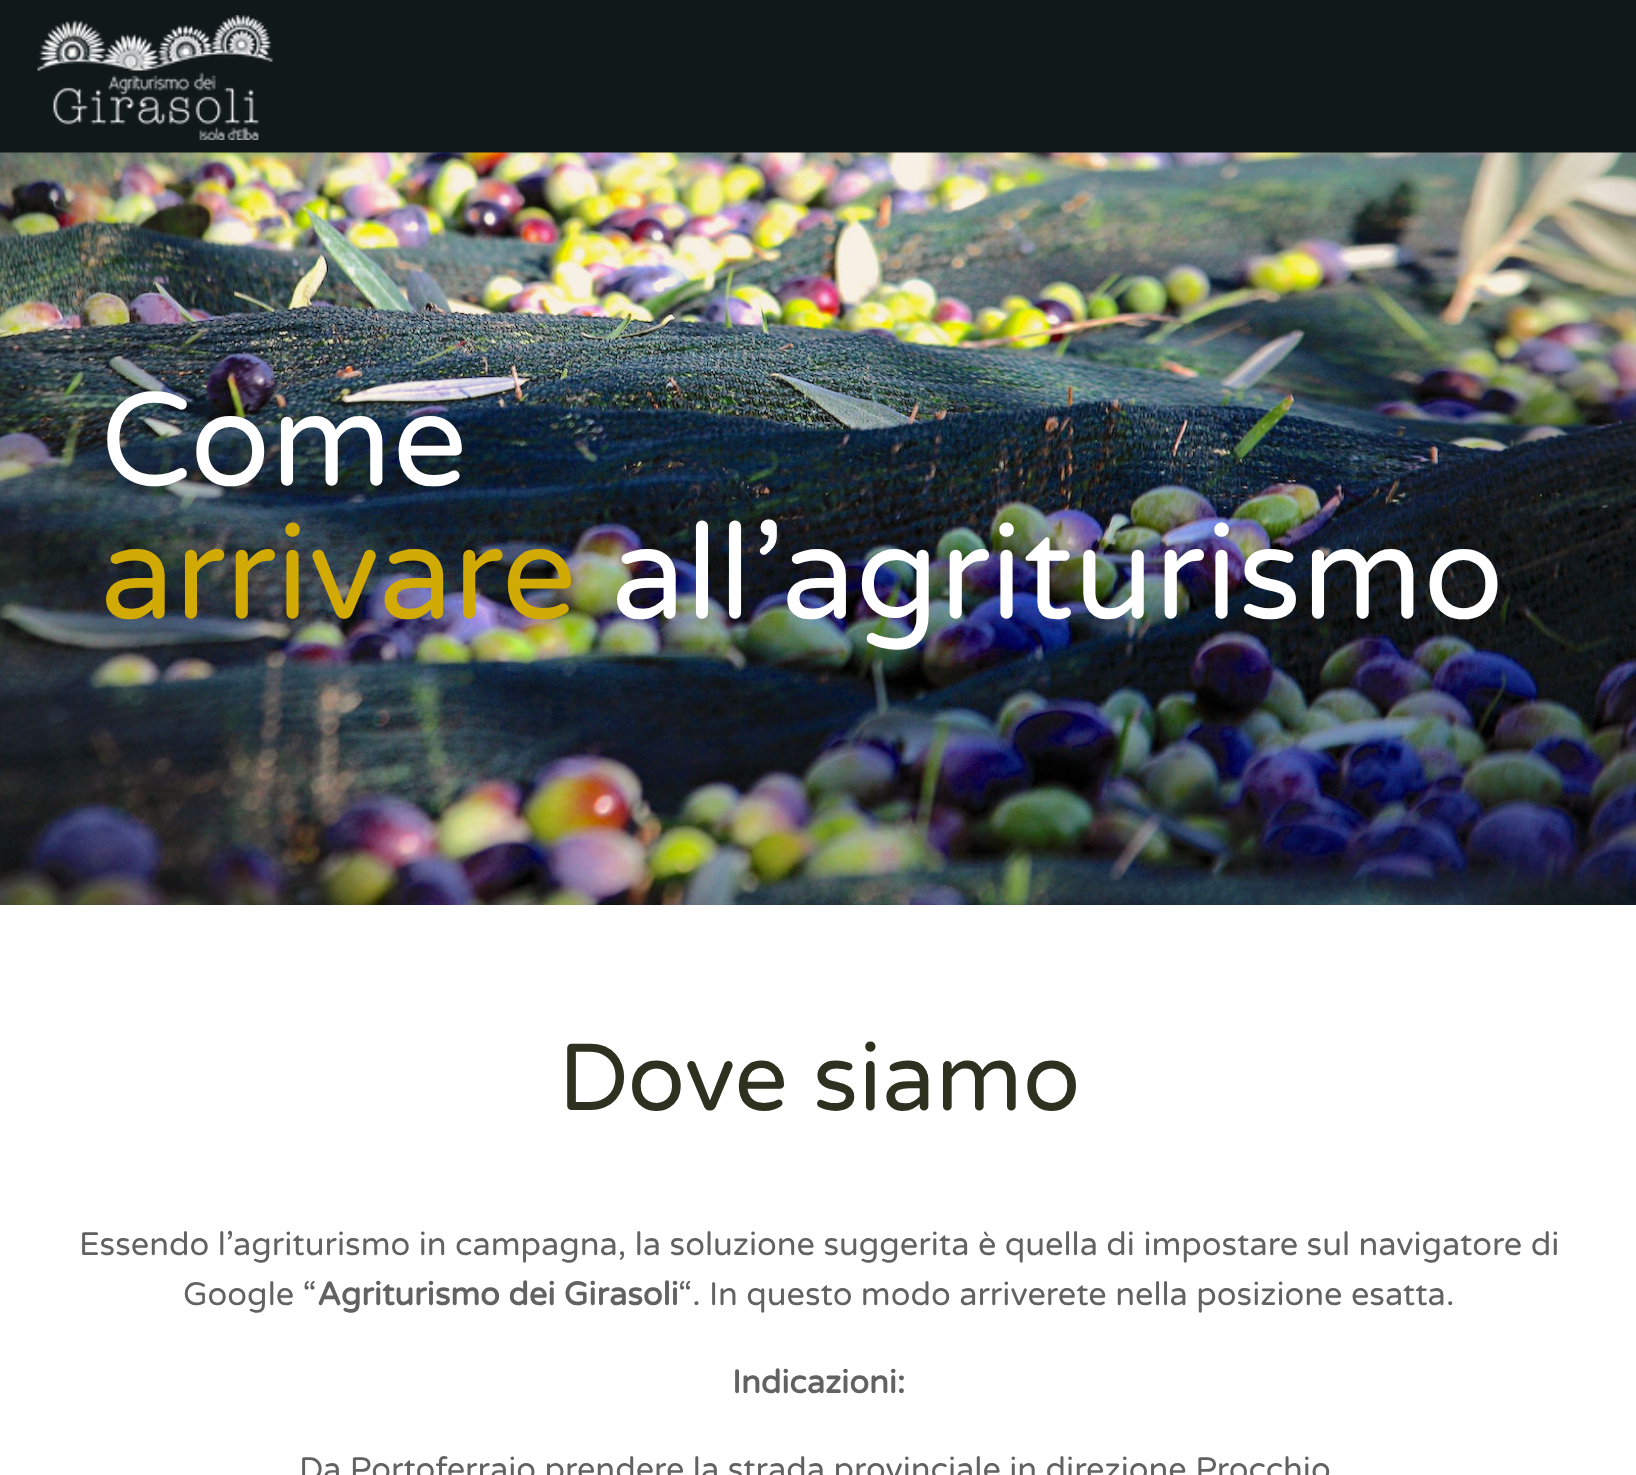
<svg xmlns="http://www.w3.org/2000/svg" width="1636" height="1475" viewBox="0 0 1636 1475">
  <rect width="100%" height="100%" fill="#ffffff"/>
  <rect x="0" y="0" width="1636" height="153" fill="#101819"/>
  <image x="37" y="15" width="236" height="125" href="img1.png"/>
  <image x="0" y="152" width="1636" height="753" href="img2.png"/>
  <text x="100" y="485" font-family="Varela Round" font-size="132.5" fill="#ffffff">Come</text>
  <text x="100" y="618" font-family="Varela Round" font-size="132.5" fill="#d2aa06">arrivare</text>
  <text x="611" y="618" font-family="Varela Round" font-size="132.5" fill="#ffffff">all’agriturismo</text>
  <text x="558" y="1110" font-family="Varela Round" font-size="95" fill="#2e3020">Dove siamo</text>
  <text x="79" y="1255" font-family="Varela Round" font-size="32.5" fill="#626262">Essendo l’agriturismo in campagna, la soluzione suggerita è quella di impostare sul navigatore di</text>
  <text x="183" y="1305" font-family="Varela Round" font-size="32.5" fill="#626262">Google “</text>
  <text x="317" y="1305" font-family="Varela Round" font-size="32.5" font-weight="bold" fill="#626262">Agriturismo dei Girasoli</text>
  <text x="678" y="1305" font-family="Varela Round" font-size="32.5" fill="#626262">“. In questo modo arriverete nella posizione esatta.</text>
  <text x="732" y="1393" font-family="Varela Round" font-size="32.5" font-weight="bold" fill="#626262">Indicazioni:</text>
  <text x="299" y="1480" font-family="Varela Round" font-size="32.5" fill="#626262">Da Portoferraio prendere la strada provinciale in direzione Procchio</text>
</svg>
